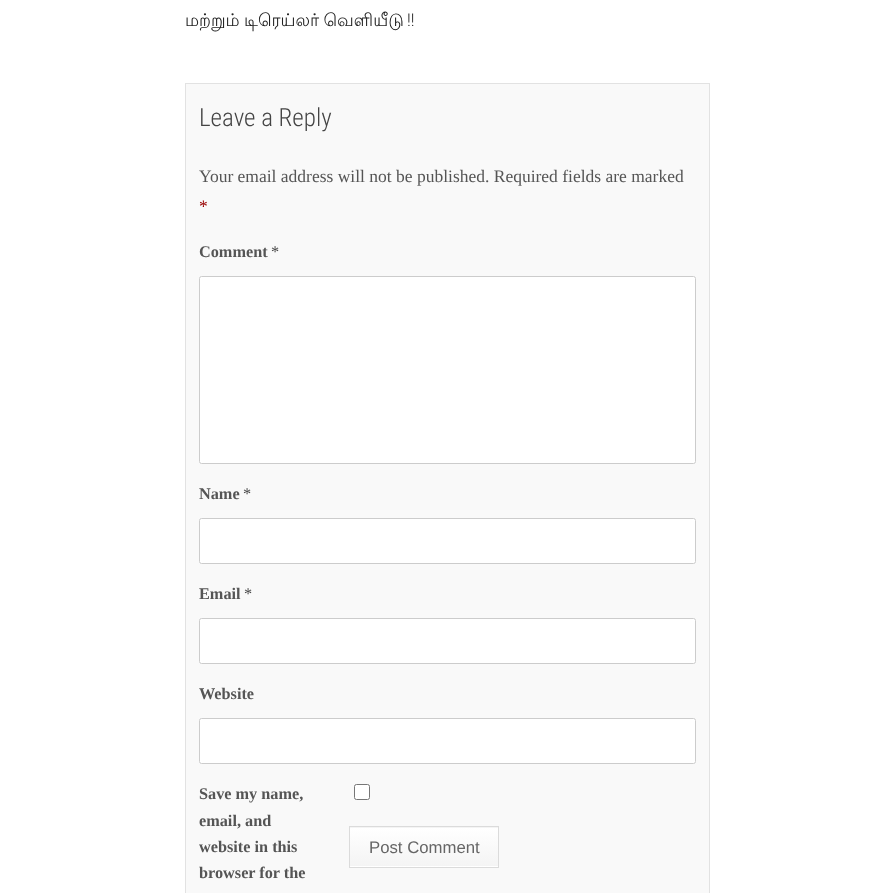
<svg xmlns="http://www.w3.org/2000/svg" width="895" height="893" viewBox="0 0 895 893">
  <defs>
    <linearGradient id="g1" gradientUnits="userSpaceOnUse" x1="424" y1="789" x2="424" y2="828"><stop offset="0" stop-color="#ffffff"/><stop offset="1" stop-color="#f4f4f4"/></linearGradient>
    <linearGradient id="g2" gradientUnits="userSpaceOnUse" x1="424" y1="828" x2="424" y2="866"><stop offset="0" stop-color="#ffffff"/><stop offset="1" stop-color="#f4f4f4"/></linearGradient>
    <linearGradient id="g3" gradientUnits="userSpaceOnUse" x1="424" y1="866" x2="424" y2="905"><stop offset="0" stop-color="#ffffff"/><stop offset="1" stop-color="#f4f4f4"/></linearGradient>
  </defs>
  <rect width="100%" height="100%" fill="#ffffff"/>
  <text x="185" y="26" word-spacing="-1" font-family="Lohit Tamil" font-size="17.5" fill="#222222">மற்றும் டிரெய்லர் வெளியீடு</text>
  <text x="407" y="26" font-family="Roboto Condensed" font-size="17.5" font-weight="300" fill="#222222">!!</text>
  <rect x="185.5" y="83.5" width="524" height="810" fill="#f9f9f9" stroke="#e2e2e2"/>
  <text x="199" y="126" font-family="Roboto Condensed" font-size="25" font-weight="300" fill="#444444">Leave a Reply</text>
  <text x="199" y="182" font-family="Liberation Serif" font-size="17.5" fill="#555555">Your email address will not be published. Required fields are marked</text>
  <text x="199" y="212" font-family="Liberation Serif" font-size="17.5" fill="#990000">*</text>
  <text x="199" y="257" font-family="Liberation Serif" font-size="16.25" font-weight="bold" fill="#555555">Comment</text>
  <text x="271" y="257" font-family="Liberation Serif" font-size="16.25" fill="#444444">*</text>
  <rect x="199.5" y="276.5" width="496" height="187" rx="2" fill="#ffffff" stroke="#cccccc"/>
  <text x="199" y="499" font-family="Liberation Serif" font-size="16.25" font-weight="bold" fill="#555555">Name</text>
  <text x="243" y="499" font-family="Liberation Serif" font-size="16.25" fill="#444444">*</text>
  <rect x="199.5" y="518.5" width="496" height="45" rx="2" fill="#ffffff" stroke="#cccccc"/>
  <text x="199" y="599" font-family="Liberation Serif" font-size="16.25" font-weight="bold" fill="#555555">Email</text>
  <text x="244" y="599" font-family="Liberation Serif" font-size="16.25" fill="#444444">*</text>
  <rect x="199.5" y="618.5" width="496" height="45" rx="2" fill="#ffffff" stroke="#cccccc"/>
  <text x="199" y="699" font-family="Liberation Serif" font-size="16.25" font-weight="bold" fill="#555555">Website</text>
  <rect x="199.5" y="718.5" width="496" height="45" rx="2" fill="#ffffff" stroke="#cccccc"/>
  <text x="199" y="799" font-family="Liberation Serif" font-size="16.25" font-weight="bold" fill="#555555">Save my name,</text>
  <text x="199" y="826" font-family="Liberation Serif" font-size="16.25" font-weight="bold" fill="#555555">email, and</text>
  <text x="199" y="852" font-family="Liberation Serif" font-size="16.25" font-weight="bold" fill="#555555">website in this</text>
  <text x="199" y="878" font-family="Liberation Serif" font-size="16.25" font-weight="bold" fill="#555555">browser for the</text>
  <rect x="354.5" y="784.5" width="15" height="15" rx="2" fill="#ffffff" stroke="#767676"/>
  <rect x="349" y="827" width="150" height="1" fill="url(#g1)"/>
  <rect x="350" y="828" width="148" height="38" fill="url(#g2)"/>
  <rect x="349" y="866" width="150" height="1" fill="url(#g3)"/>
  <rect x="349.5" y="826.5" width="149" height="41" fill="none" stroke="#dbdbdb"/>
  <text x="369" y="853" font-family="Liberation Sans" font-size="16.75" fill="#666666">Post Comment</text>
</svg>
